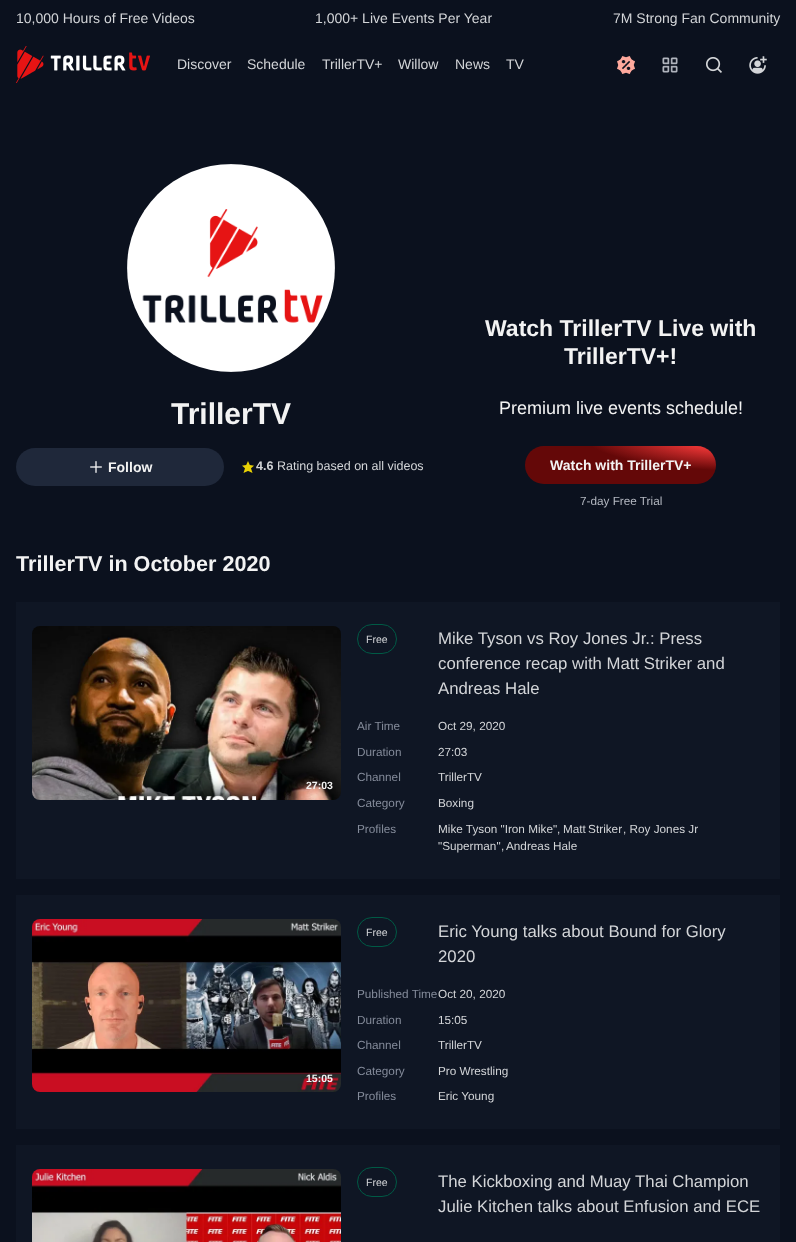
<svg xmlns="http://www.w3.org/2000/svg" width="796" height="1242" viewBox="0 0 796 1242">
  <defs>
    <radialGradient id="g1" gradientUnits="userSpaceOnUse" cx="0" cy="0" r="1" gradientTransform="matrix(171 0 0 36 750 436)"><stop offset="0.14" stop-color="#ffa99d"/><stop offset="0.35" stop-color="#f93a3a"/><stop offset="0.97" stop-color="#640808"/></radialGradient>
  </defs>
  <rect width="100%" height="100%" fill="#0b111e"/>
  <text x="16" y="23" font-family="Liberation Sans" font-size="14" fill="#d3d5d8">10,000 Hours of Free Videos</text>
  <text x="315" y="23" font-family="Liberation Sans" font-size="14" fill="#d3d5d8">1,000+ Live Events Per Year</text>
  <text x="613" y="23" font-family="Liberation Sans" font-size="14" fill="#d3d5d8">7M Strong Fan Community</text>
  <image x="16" y="46" width="134" height="37" href="img1.png"/>
  <text x="177" y="69" font-family="Liberation Sans" font-size="14" fill="#d3d5d8">Discover</text>
  <text x="247" y="69" font-family="Liberation Sans" font-size="14" fill="#d3d5d8">Schedule</text>
  <text x="322" y="69" font-family="Liberation Sans" font-size="14" fill="#d3d5d8">TrillerTV+</text>
  <text x="398" y="69" font-family="Liberation Sans" font-size="14" fill="#d3d5d8">Willow</text>
  <text x="455" y="69" font-family="Liberation Sans" font-size="14" fill="#d3d5d8">News</text>
  <text x="506" y="69" font-family="Liberation Sans" font-size="14" fill="#d3d5d8">TV</text>
  <image x="617" y="56" width="18" height="18" href="img2.png"/>
  <image x="662" y="57" width="16" height="16" href="img3.png"/>
  <image x="706" y="57" width="16" height="16" href="img4.png"/>
  <image x="749" y="56" width="18" height="18" href="img5.png"/>
  <image x="127" y="164" width="208" height="208" href="img6.png"/>
  <text x="171" y="424" font-family="Liberation Sans" font-size="30" font-weight="bold" fill="#f3f3f3">TrillerTV</text>
  <rect x="16" y="448" width="208" height="38" rx="19" fill="#1f283a"/>
  <image x="90" y="461" width="12" height="12" href="img7.png"/>
  <text x="108" y="472" font-family="Liberation Sans" font-size="14" font-weight="bold" fill="#f3f3f3">Follow</text>
  <image x="242" y="461" width="12" height="12" href="img8.png"/>
  <text x="256" y="470" font-family="Liberation Sans" font-size="12.5" font-weight="bold" fill="#d3d5d8">4.6</text>
  <text x="277" y="470" font-family="Liberation Sans" font-size="12.5" fill="#d3d5d8">Rating based on all videos</text>
  <text x="485" y="336" font-family="Liberation Sans" font-size="23" font-weight="bold" fill="#f3f3f3">Watch TrillerTV Live with</text>
  <text x="564" y="364" font-family="Liberation Sans" font-size="23" font-weight="bold" fill="#f3f3f3">TrillerTV+!</text>
  <text x="499" y="414" font-family="Liberation Sans" font-size="18" fill="#f3f3f3">Premium live events schedule!</text>
  <rect x="525" y="446" width="191" height="38" rx="19" fill="url(#g1)"/>
  <text x="550" y="470" font-family="Liberation Sans" font-size="14" font-weight="bold" fill="#f3f3f3">Watch with TrillerTV+</text>
  <text x="580" y="505" font-family="Liberation Sans" font-size="11.75" fill="#b4b8c1">7-day Free Trial</text>
  <text x="16" y="571" font-family="Liberation Sans" font-size="21.6" font-weight="bold" fill="#f3f3f3">TrillerTV in October 2020</text>
  <rect x="16" y="602" width="764" height="277" fill="#0f1624"/>
  <image x="32" y="626" width="309" height="174" href="img9.png"/>
  <text x="306" y="789" font-family="Liberation Sans" font-size="10.5" font-weight="bold" fill="#f3f3f3">27:03</text>
  <rect x="357.5" y="624.5" width="39" height="29" rx="14.5" fill="none" stroke="#005a45"/>
  <text x="366" y="643" font-family="Liberation Sans" font-size="10.5" fill="#d3d5d8">Free</text>
  <text x="438" y="644" font-family="Liberation Sans" font-size="16.75" fill="#d3d5d8">Mike Tyson vs Roy Jones Jr.: Press</text>
  <text x="438" y="669" font-family="Liberation Sans" font-size="16.75" fill="#d3d5d8">conference recap with Matt Striker and</text>
  <text x="438" y="694" font-family="Liberation Sans" font-size="16.75" fill="#d3d5d8">Andreas Hale</text>
  <text x="357" y="730" font-family="Liberation Sans" font-size="11.75" fill="#848b9a">Air Time</text>
  <text x="438" y="730" font-family="Liberation Sans" font-size="11.75" fill="#d3d5d8">Oct 29, 2020</text>
  <text x="357" y="756" font-family="Liberation Sans" font-size="11.75" fill="#848b9a">Duration</text>
  <text x="438" y="756" font-family="Liberation Sans" font-size="11.75" fill="#d3d5d8">27:03</text>
  <text x="357" y="781" font-family="Liberation Sans" font-size="11.75" fill="#848b9a">Channel</text>
  <text x="438" y="781" font-family="Liberation Sans" font-size="11.75" fill="#d3d5d8">TrillerTV</text>
  <text x="357" y="807" font-family="Liberation Sans" font-size="11.75" fill="#848b9a">Category</text>
  <text x="438" y="807" font-family="Liberation Sans" font-size="11.75" fill="#d3d5d8">Boxing</text>
  <text x="357" y="833" font-family="Liberation Sans" font-size="11.75" fill="#848b9a">Profiles</text>
  <text x="438" y="833" font-family="Liberation Sans" font-size="11.75" fill="#d3d5d8">Mike Tyson "Iron Mike"</text>
  <text x="557" y="833" font-family="Liberation Sans" font-size="11.75" fill="#d3d5d8">,</text>
  <text x="563" y="833" word-spacing="-1" font-family="Liberation Sans" font-size="11.75" fill="#d3d5d8">Matt Striker</text>
  <text x="623" y="833" font-family="Liberation Sans" font-size="11.75" fill="#d3d5d8">, Roy Jones Jr</text>
  <text x="438" y="850" font-family="Liberation Sans" font-size="11.75" fill="#d3d5d8">"Superman"</text>
  <text x="501" y="850" font-family="Liberation Sans" font-size="11.75" fill="#d3d5d8">,</text>
  <text x="506" y="850" font-family="Liberation Sans" font-size="11.75" fill="#d3d5d8">Andreas Hale</text>
  <rect x="16" y="895" width="764" height="234" fill="#0f1624"/>
  <image x="32" y="919" width="309" height="173" href="img10.png"/>
  <text x="306" y="1082" font-family="Liberation Sans" font-size="10.5" font-weight="bold" fill="#f3f3f3">15:05</text>
  <rect x="357.5" y="917.5" width="39" height="29" rx="14.5" fill="none" stroke="#005a45"/>
  <text x="366" y="936" font-family="Liberation Sans" font-size="10.5" fill="#d3d5d8">Free</text>
  <text x="438" y="937" font-family="Liberation Sans" font-size="16.75" fill="#d3d5d8">Eric Young talks about Bound for Glory</text>
  <text x="438" y="962" font-family="Liberation Sans" font-size="16.75" fill="#d3d5d8">2020</text>
  <text x="357" y="998" font-family="Liberation Sans" font-size="11.75" fill="#848b9a">Published Time</text>
  <text x="438" y="998" font-family="Liberation Sans" font-size="11.75" fill="#d3d5d8">Oct 20, 2020</text>
  <text x="357" y="1024" font-family="Liberation Sans" font-size="11.75" fill="#848b9a">Duration</text>
  <text x="438" y="1024" font-family="Liberation Sans" font-size="11.75" fill="#d3d5d8">15:05</text>
  <text x="357" y="1049" font-family="Liberation Sans" font-size="11.75" fill="#848b9a">Channel</text>
  <text x="438" y="1049" font-family="Liberation Sans" font-size="11.75" fill="#d3d5d8">TrillerTV</text>
  <text x="357" y="1075" font-family="Liberation Sans" font-size="11.75" fill="#848b9a">Category</text>
  <text x="438" y="1075" font-family="Liberation Sans" font-size="11.75" fill="#d3d5d8">Pro Wrestling</text>
  <text x="357" y="1100" font-family="Liberation Sans" font-size="11.75" fill="#848b9a">Profiles</text>
  <text x="438" y="1100" font-family="Liberation Sans" font-size="11.75" fill="#d3d5d8">Eric Young</text>
  <rect x="16" y="1145" width="764" height="97" fill="#0f1624"/>
  <image x="32" y="1169" width="309" height="73" href="img11.png"/>
  <rect x="357.5" y="1167.5" width="39" height="29" rx="14.5" fill="none" stroke="#005a45"/>
  <text x="366" y="1186" font-family="Liberation Sans" font-size="10.5" fill="#d3d5d8">Free</text>
  <text x="438" y="1187" font-family="Liberation Sans" font-size="16.75" fill="#d3d5d8">The Kickboxing and Muay Thai Champion</text>
  <text x="438" y="1212" font-family="Liberation Sans" font-size="16.75" fill="#d3d5d8">Julie Kitchen talks about Enfusion and ECE</text>
</svg>
